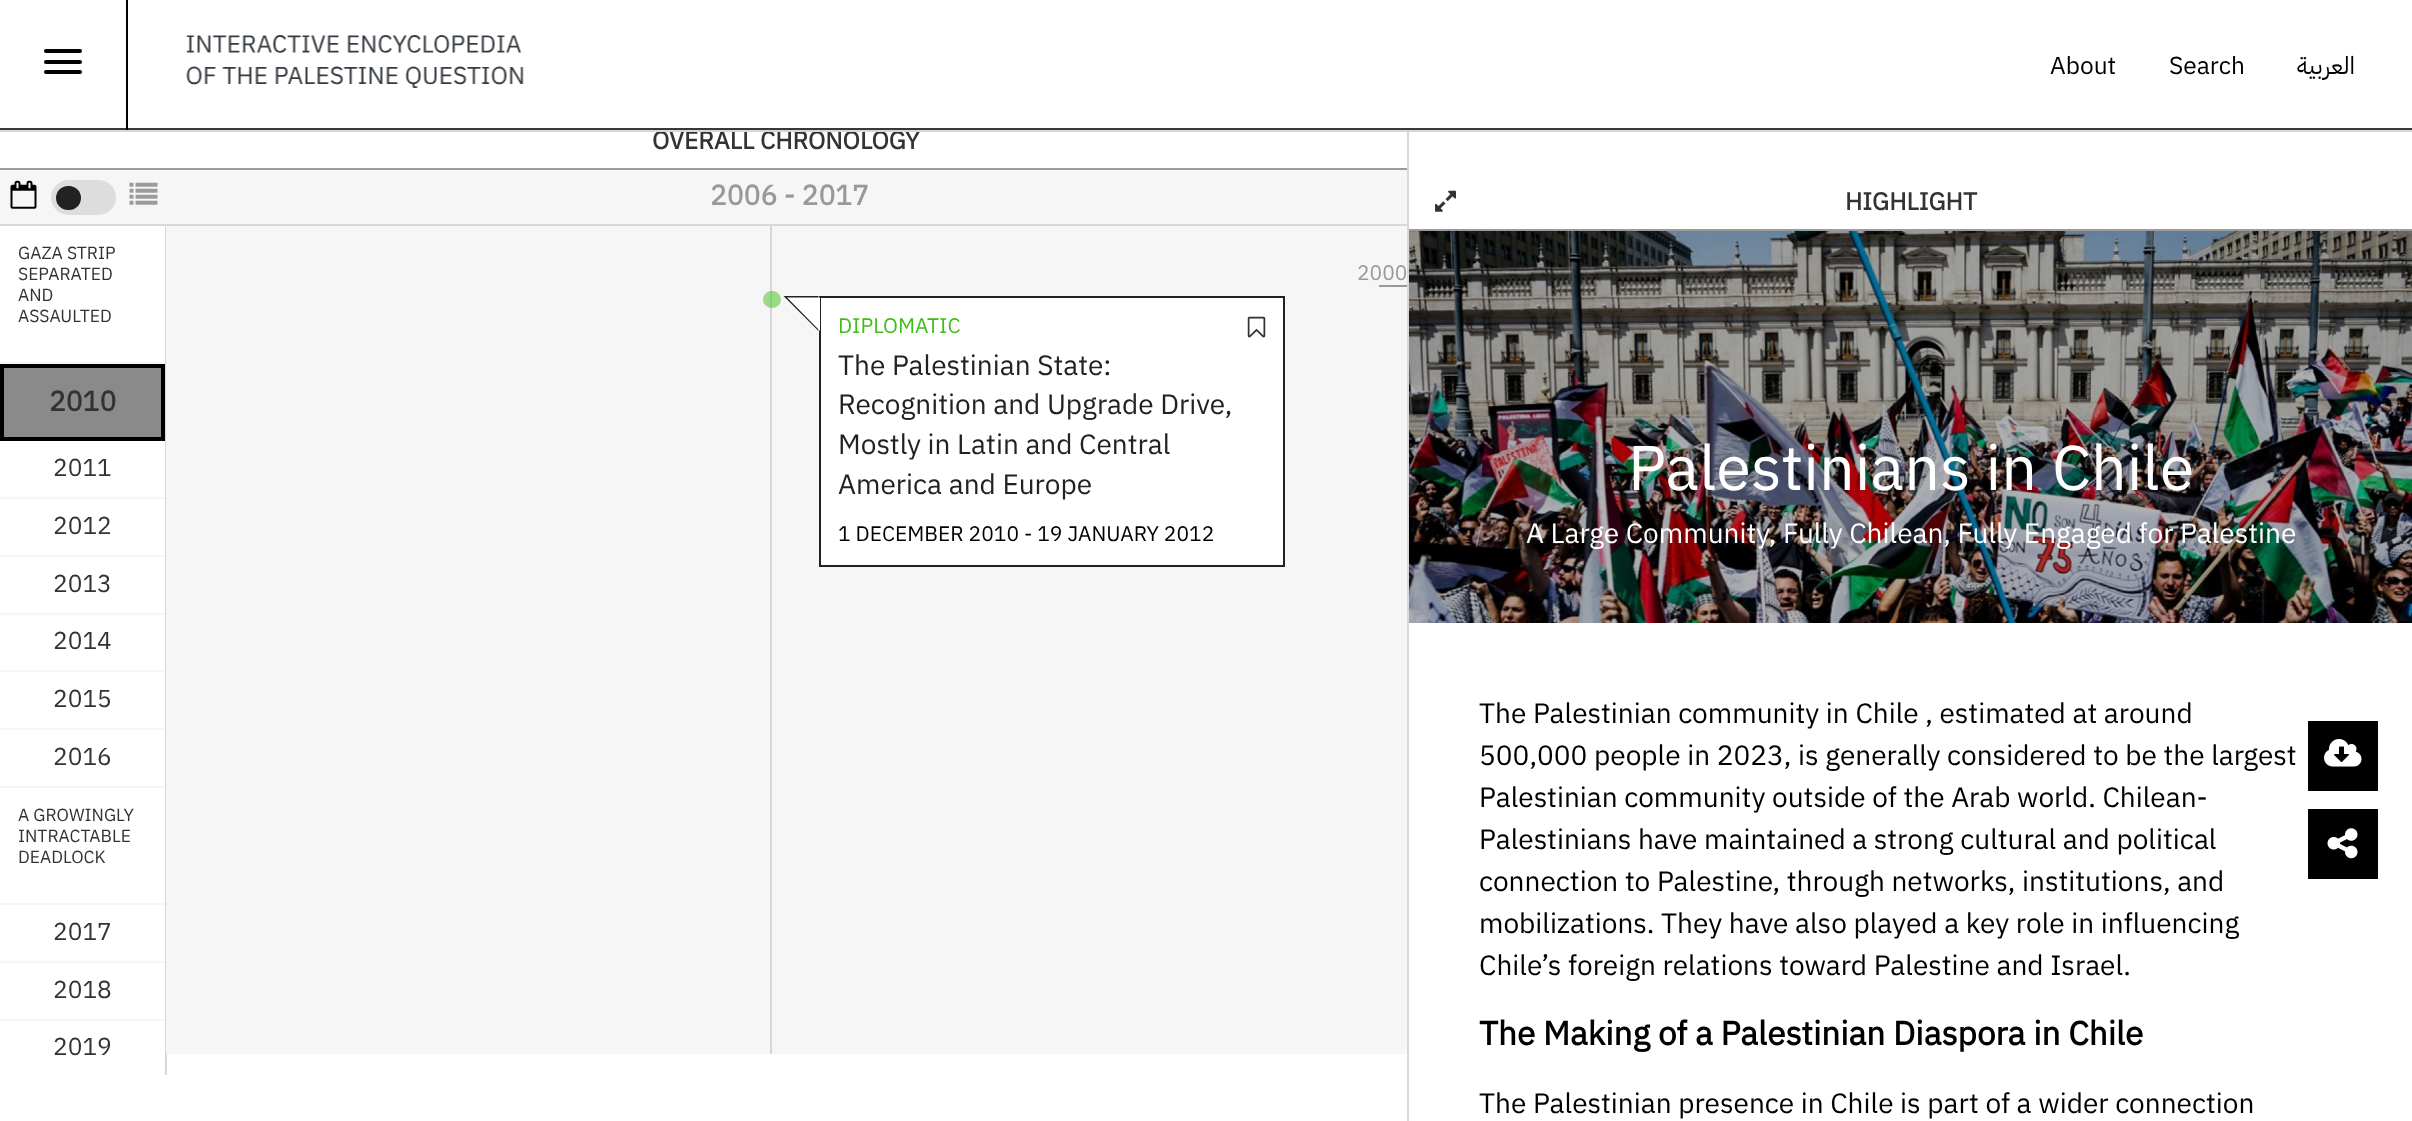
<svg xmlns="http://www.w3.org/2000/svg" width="2412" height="1121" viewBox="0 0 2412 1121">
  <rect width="100%" height="100%" fill="#ffffff"/>
  <text x="652" y="149" font-family="IBM Plex Sans Arabic" font-size="24.5" font-weight="bold" fill="#333333">OVERALL CHRONOLOGY</text>
  <rect x="0" y="130" width="2412" height="2" fill="#d7d7d7"/>
  <rect x="0" y="128" width="2412" height="2" fill="#343a40"/>
  <rect x="126" y="0" width="2" height="130" fill="#000000"/>
  <rect x="44" y="49" width="38" height="4" rx="2" fill="#000000"/>
  <rect x="44" y="60" width="38" height="4" rx="2" fill="#000000"/>
  <rect x="44" y="70" width="38" height="4" rx="2" fill="#000000"/>
  <image x="186" y="35" width="338" height="53" href="img1.png"/>
  <text x="2050" y="74" font-family="IBM Plex Sans Arabic" font-size="24.5" fill="#000000">About</text>
  <text x="2169" y="74" font-family="IBM Plex Sans Arabic" font-size="24.5" fill="#000000">Search</text>
  <text x="2355" y="74" font-family="IBM Plex Sans Arabic" font-size="24.5" direction="rtl" fill="#000000">العربية</text>
  <rect x="0" y="168" width="1407" height="2" fill="#9b9b9b"/>
  <rect x="0" y="170" width="1407" height="54" fill="#f6f6f6"/>
  <rect x="0" y="224" width="1407" height="2" fill="#d8d8d8"/>
  <image x="10" y="180" width="27" height="29" href="img2.png"/>
  <rect x="52" y="181" width="63" height="33" rx="16.5" fill="#dddddd" stroke="#dddddd" stroke-width="2"/>
  <rect x="56" y="186" width="25" height="24" rx="12" fill="#222222"/>
  <image x="129" y="182" width="29" height="23" href="img3.png"/>
  <text x="710" y="205" font-family="IBM Plex Sans Arabic" font-size="28" font-weight="bold" fill="#999999">2006 - 2017</text>
  <rect x="165" y="226" width="2" height="849" fill="#d8d8d8"/>
  <rect x="0" y="362" width="165" height="2" fill="#f6f6f6"/>
  <text x="18" y="259" font-family="IBM Plex Sans Arabic" font-size="17.5" fill="#333333">GAZA STRIP</text>
  <text x="18" y="280" font-family="IBM Plex Sans Arabic" font-size="17.5" fill="#333333">SEPARATED</text>
  <text x="18" y="301" font-family="IBM Plex Sans Arabic" font-size="17.5" fill="#333333">AND</text>
  <text x="18" y="322" font-family="IBM Plex Sans Arabic" font-size="17.5" fill="#333333">ASSAULTED</text>
  <rect x="2" y="366" width="161" height="73" fill="#8a8a8a" stroke="#000000" stroke-width="4"/>
  <text x="49" y="411" font-family="IBM Plex Sans Arabic" font-size="28" font-weight="bold" fill="#333333">2010</text>
  <rect x="0" y="497" width="165" height="2" fill="#f6f6f6"/>
  <text x="53" y="476" font-family="IBM Plex Sans Arabic" font-size="24.5" fill="#333333">2011</text>
  <rect x="0" y="555" width="165" height="2" fill="#f6f6f6"/>
  <text x="53" y="534" font-family="IBM Plex Sans Arabic" font-size="24.5" fill="#333333">2012</text>
  <rect x="0" y="613" width="165" height="2" fill="#f6f6f6"/>
  <text x="53" y="592" font-family="IBM Plex Sans Arabic" font-size="24.5" fill="#333333">2013</text>
  <rect x="0" y="670" width="165" height="2" fill="#f6f6f6"/>
  <text x="53" y="649" font-family="IBM Plex Sans Arabic" font-size="24.5" fill="#333333">2014</text>
  <rect x="0" y="728" width="165" height="2" fill="#f6f6f6"/>
  <text x="53" y="707" font-family="IBM Plex Sans Arabic" font-size="24.5" fill="#333333">2015</text>
  <rect x="0" y="786" width="165" height="2" fill="#f6f6f6"/>
  <text x="53" y="765" font-family="IBM Plex Sans Arabic" font-size="24.5" fill="#333333">2016</text>
  <rect x="0" y="903" width="165" height="2" fill="#f6f6f6"/>
  <text x="18" y="821" font-family="IBM Plex Sans Arabic" font-size="17.5" fill="#333333">A GROWINGLY</text>
  <text x="18" y="842" font-family="IBM Plex Sans Arabic" font-size="17.5" fill="#333333">INTRACTABLE</text>
  <text x="18" y="863" font-family="IBM Plex Sans Arabic" font-size="17.5" fill="#333333">DEADLOCK</text>
  <rect x="0" y="961" width="165" height="2" fill="#f6f6f6"/>
  <text x="53" y="940" font-family="IBM Plex Sans Arabic" font-size="24.5" fill="#333333">2017</text>
  <rect x="0" y="1019" width="165" height="2" fill="#f6f6f6"/>
  <text x="53" y="998" font-family="IBM Plex Sans Arabic" font-size="24.5" fill="#333333">2018</text>
  <text x="53" y="1055" font-family="IBM Plex Sans Arabic" font-size="24.5" fill="#333333">2019</text>
  <rect x="166" y="226" width="1241" height="828" fill="#f6f6f6"/>
  <rect x="770" y="226" width="2" height="828" fill="#d7d7d7"/>
  <text x="1357" y="280" font-family="IBM Plex Sans Arabic" font-size="21" fill="#999999">2000</text>
  <rect x="1379" y="285" width="28" height="2" fill="#999999"/>
  <rect x="763" y="291" width="18" height="17" rx="8.5" fill="#40be17" fill-opacity="0.5"/>
  <path d="M818.5 296H783.5L818.5 331Z" fill="#222222"/>
  <rect x="820" y="297" width="464" height="269" fill="#ffffff" stroke="#222222" stroke-width="2"/>
  <path d="M820 297.5H787L820 331Z" fill="#ffffff"/>
  <text x="838" y="333" font-family="IBM Plex Sans Arabic" font-size="21" fill="#40be17">DIPLOMATIC</text>
  <image x="1247" y="316" width="19" height="22" href="img4.png"/>
  <text x="838" y="375" font-family="IBM Plex Sans Arabic" font-size="28" fill="#222222">The Palestinian State:</text>
  <text x="838" y="414" font-family="IBM Plex Sans Arabic" font-size="28" fill="#222222">Recognition and Upgrade Drive,</text>
  <text x="838" y="454" font-family="IBM Plex Sans Arabic" font-size="28" fill="#222222">Mostly in Latin and Central</text>
  <text x="838" y="494" font-family="IBM Plex Sans Arabic" font-size="28" fill="#222222">America and Europe</text>
  <text x="838" y="541" font-family="IBM Plex Sans Arabic" font-size="21" fill="#000000">1 DECEMBER 2010 - 19 JANUARY 2012</text>
  <rect x="1407" y="132" width="2" height="989" fill="#d8d8d8"/>
  <rect x="1409" y="229" width="1003" height="2" fill="#9b9b9b"/>
  <image x="1435" y="190" width="21" height="22" href="img5.png"/>
  <text x="1845" y="210" font-family="IBM Plex Sans Arabic" font-size="24.5" font-weight="bold" fill="#333333">HIGHLIGHT</text>
  <image x="1409" y="231" width="1003" height="392" href="img6.png"/>
  <text x="1628" y="490" font-family="IBM Plex Sans Arabic" font-size="63" fill="#ffffff">Palestinians in Chile</text>
  <text x="1526" y="543" font-family="IBM Plex Sans Arabic" font-size="28" fill="#ffffff">A Large Community, Fully Chilean, Fully Engaged for Palestine</text>
  <text x="1479" y="723" font-family="IBM Plex Sans Arabic" font-size="28" fill="#000000">The Palestinian community in Chile , estimated at around</text>
  <text x="1479" y="765" font-family="IBM Plex Sans Arabic" font-size="28" fill="#000000">500,000 people in 2023, is generally considered to be the largest</text>
  <text x="1479" y="807" font-family="IBM Plex Sans Arabic" font-size="28" fill="#000000">Palestinian community outside of the Arab world. Chilean-</text>
  <text x="1479" y="849" font-family="IBM Plex Sans Arabic" font-size="28" fill="#000000">Palestinians have maintained a strong cultural and political</text>
  <text x="1479" y="891" font-family="IBM Plex Sans Arabic" font-size="28" fill="#000000">connection to Palestine, through networks, institutions, and</text>
  <text x="1479" y="933" font-family="IBM Plex Sans Arabic" font-size="28" fill="#000000">mobilizations. They have also played a key role in influencing</text>
  <text x="1479" y="975" font-family="IBM Plex Sans Arabic" font-size="28" fill="#000000">Chile’s foreign relations toward Palestine and Israel.</text>
  <text x="1479" y="1045" font-family="IBM Plex Sans Arabic" font-size="33.25" font-weight="bold" fill="#000000">The Making of a Palestinian Diaspora in Chile</text>
  <text x="1479" y="1113" font-family="IBM Plex Sans Arabic" font-size="28" fill="#000000">The Palestinian presence in Chile is part of a wider connection</text>
  <rect x="2308" y="721" width="70" height="70" fill="#000000"/>
  <image x="2324" y="739" width="38" height="28" href="img7.png"/>
  <rect x="2308" y="809" width="70" height="70" fill="#000000"/>
  <image x="2327" y="828" width="31" height="31" href="img8.png"/>
</svg>
